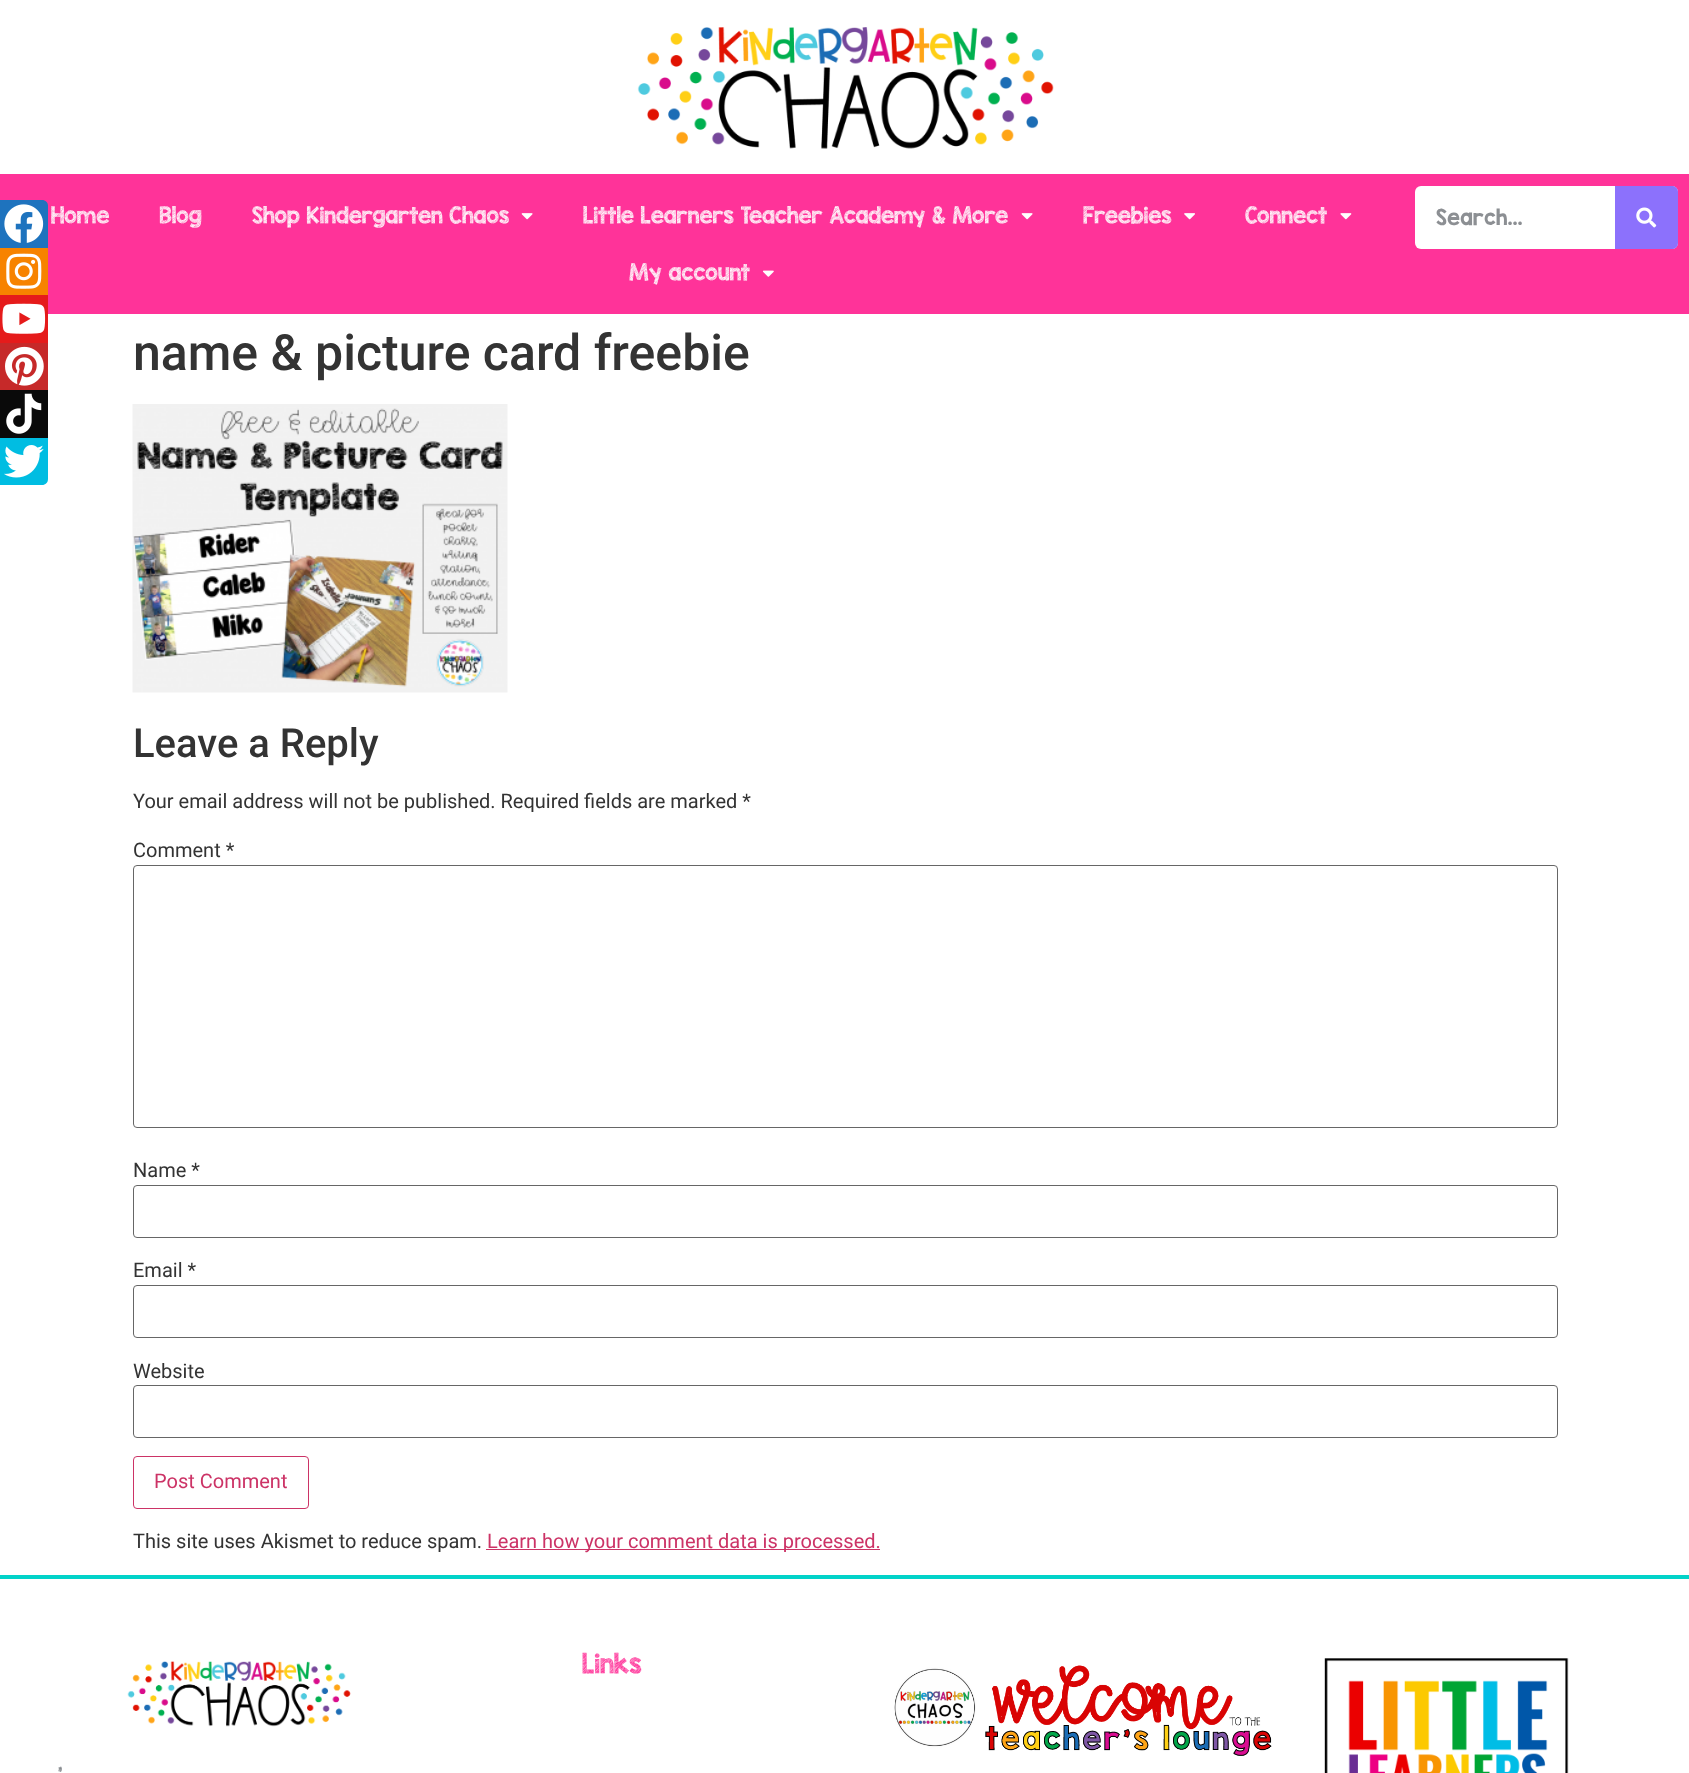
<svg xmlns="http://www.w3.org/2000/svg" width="1689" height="1773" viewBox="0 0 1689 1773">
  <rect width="100%" height="100%" fill="#ffffff"/>
  <rect x="0" y="174" width="1689" height="140" fill="#ff3399"/>
  <path d="M0 200H42C45.5 200 48 202.5 48 206V248H0Z" fill="#1e73be"/>
  <image x="4" y="204" width="40" height="39" href="img1.png"/>
  <rect x="0" y="248" width="48" height="47" fill="#f78300"/>
  <image x="6" y="253" width="36" height="36" href="img2.png"/>
  <rect x="0" y="295" width="48" height="48" fill="#e51b1b"/>
  <image x="2" y="303" width="44" height="31" href="img3.png"/>
  <rect x="0" y="343" width="48" height="47" fill="#c62929"/>
  <image x="5" y="346" width="39" height="40" href="img4.png"/>
  <rect x="0" y="390" width="48" height="48" fill="#0a0a0a"/>
  <image x="6" y="393" width="36" height="41" href="img5.png"/>
  <path d="M0 438H48V479C48 482.5 45.5 485 42 485H0Z" fill="#00bde2"/>
  <image x="4" y="445" width="40" height="33" href="img6.png"/>
  <image x="637" y="27" width="417" height="122" href="img7.png"/>
  <text x="51" y="223" font-family="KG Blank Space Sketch" font-size="18.75" fill="#ffffff">Home</text>
  <text x="159" y="223" font-family="KG Blank Space Sketch" font-size="18.75" fill="#ffffff">Blog</text>
  <text x="252" y="223" font-family="KG Blank Space Sketch" font-size="18.75" fill="#ffffff">Shop Kindergarten Chaos</text>
  <image x="521" y="213" width="12" height="7" href="img8.png"/>
  <text x="583" y="223" font-family="KG Blank Space Sketch" font-size="18.75" fill="#ffffff">Little Learners Teacher Academy &amp; More</text>
  <image x="1021" y="213" width="12" height="7" href="img8.png"/>
  <text x="1083" y="223" font-family="KG Blank Space Sketch" font-size="18.75" fill="#ffffff">Freebies</text>
  <image x="1184" y="213" width="11" height="7" href="img9.png"/>
  <text x="1245" y="223" font-family="KG Blank Space Sketch" font-size="18.75" fill="#ffffff">Connect</text>
  <image x="1340" y="213" width="12" height="7" href="img10.png"/>
  <text x="629" y="280" font-family="KG Blank Space Sketch" font-size="18.75" fill="#ffffff">My account</text>
  <image x="762" y="270" width="12" height="7" href="img11.png"/>
  <rect x="1415" y="186" width="263" height="63" rx="6" fill="#ffffff"/>
  <text x="1436" y="225" font-family="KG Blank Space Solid" font-size="18.75" fill="#8c8f93">Search...</text>
  <path d="M1615 186H1672C1675.5 186 1678 188.5 1678 192V243C1678 246.5 1675.5 249 1672 249H1615Z" fill="#8c71fc"/>
  <image x="1636" y="207" width="21" height="21" href="img12.png"/>
  <text x="133" y="370" font-family="Roboto" font-size="50" font-weight="500" fill="#333333">name &amp; picture card freebie</text>
  <image x="132" y="404" width="376" height="289" href="img13.png"/>
  <text x="133" y="757" font-family="Roboto" font-size="40" font-weight="500" fill="#333333">Leave a Reply</text>
  <text x="133" y="808" font-family="Roboto" font-size="20" fill="#333333">Your email address will not be published. Required fields are marked *</text>
  <text x="133" y="857" font-family="Roboto" font-size="20" fill="#333333">Comment *</text>
  <rect x="133.5" y="865.5" width="1424" height="262" rx="3.5" fill="none" stroke="#666666"/>
  <text x="133" y="1177" font-family="Roboto" font-size="20" fill="#333333">Name *</text>
  <rect x="133.5" y="1185.5" width="1424" height="52" rx="3.5" fill="none" stroke="#666666"/>
  <text x="133" y="1277" font-family="Roboto" font-size="20" fill="#333333">Email *</text>
  <rect x="133.5" y="1285.5" width="1424" height="52" rx="3.5" fill="none" stroke="#666666"/>
  <text x="133" y="1378" font-family="Roboto" font-size="20" fill="#333333">Website</text>
  <rect x="133.5" y="1385.5" width="1424" height="52" rx="3.5" fill="none" stroke="#666666"/>
  <rect x="133.5" y="1456.5" width="175" height="52" rx="3.5" fill="none" stroke="#cc3366"/>
  <text x="154" y="1488" font-family="Roboto" font-size="20" fill="#cc3366">Post Comment</text>
  <text x="133" y="1548" font-family="Roboto" font-size="20" fill="#333333">This site uses Akismet to reduce spam.</text>
  <rect x="486" y="1549" width="394" height="1" fill="#cc3366"/>
  <text x="487" y="1548" font-family="Roboto" font-size="20" fill="#cc3366">Learn how your comment data is processed.</text>
  <rect x="0" y="1575" width="1689" height="4" fill="#02d3c9"/>
  <text x="582" y="1673" font-family="KG Blank Space Sketch" font-size="22.5" fill="#ff3399">Links</text>
  <image x="894" y="1665" width="378" height="91" href="img14.png"/>
  <image x="1324" y="1658" width="245" height="115" href="img15.png"/>
  <image x="127" y="1661" width="224" height="66" href="img16.png"/>
  <text x="57" y="1780" font-family="KG Blank Space Sketch" font-size="18" fill="#787c81">’</text>
</svg>
